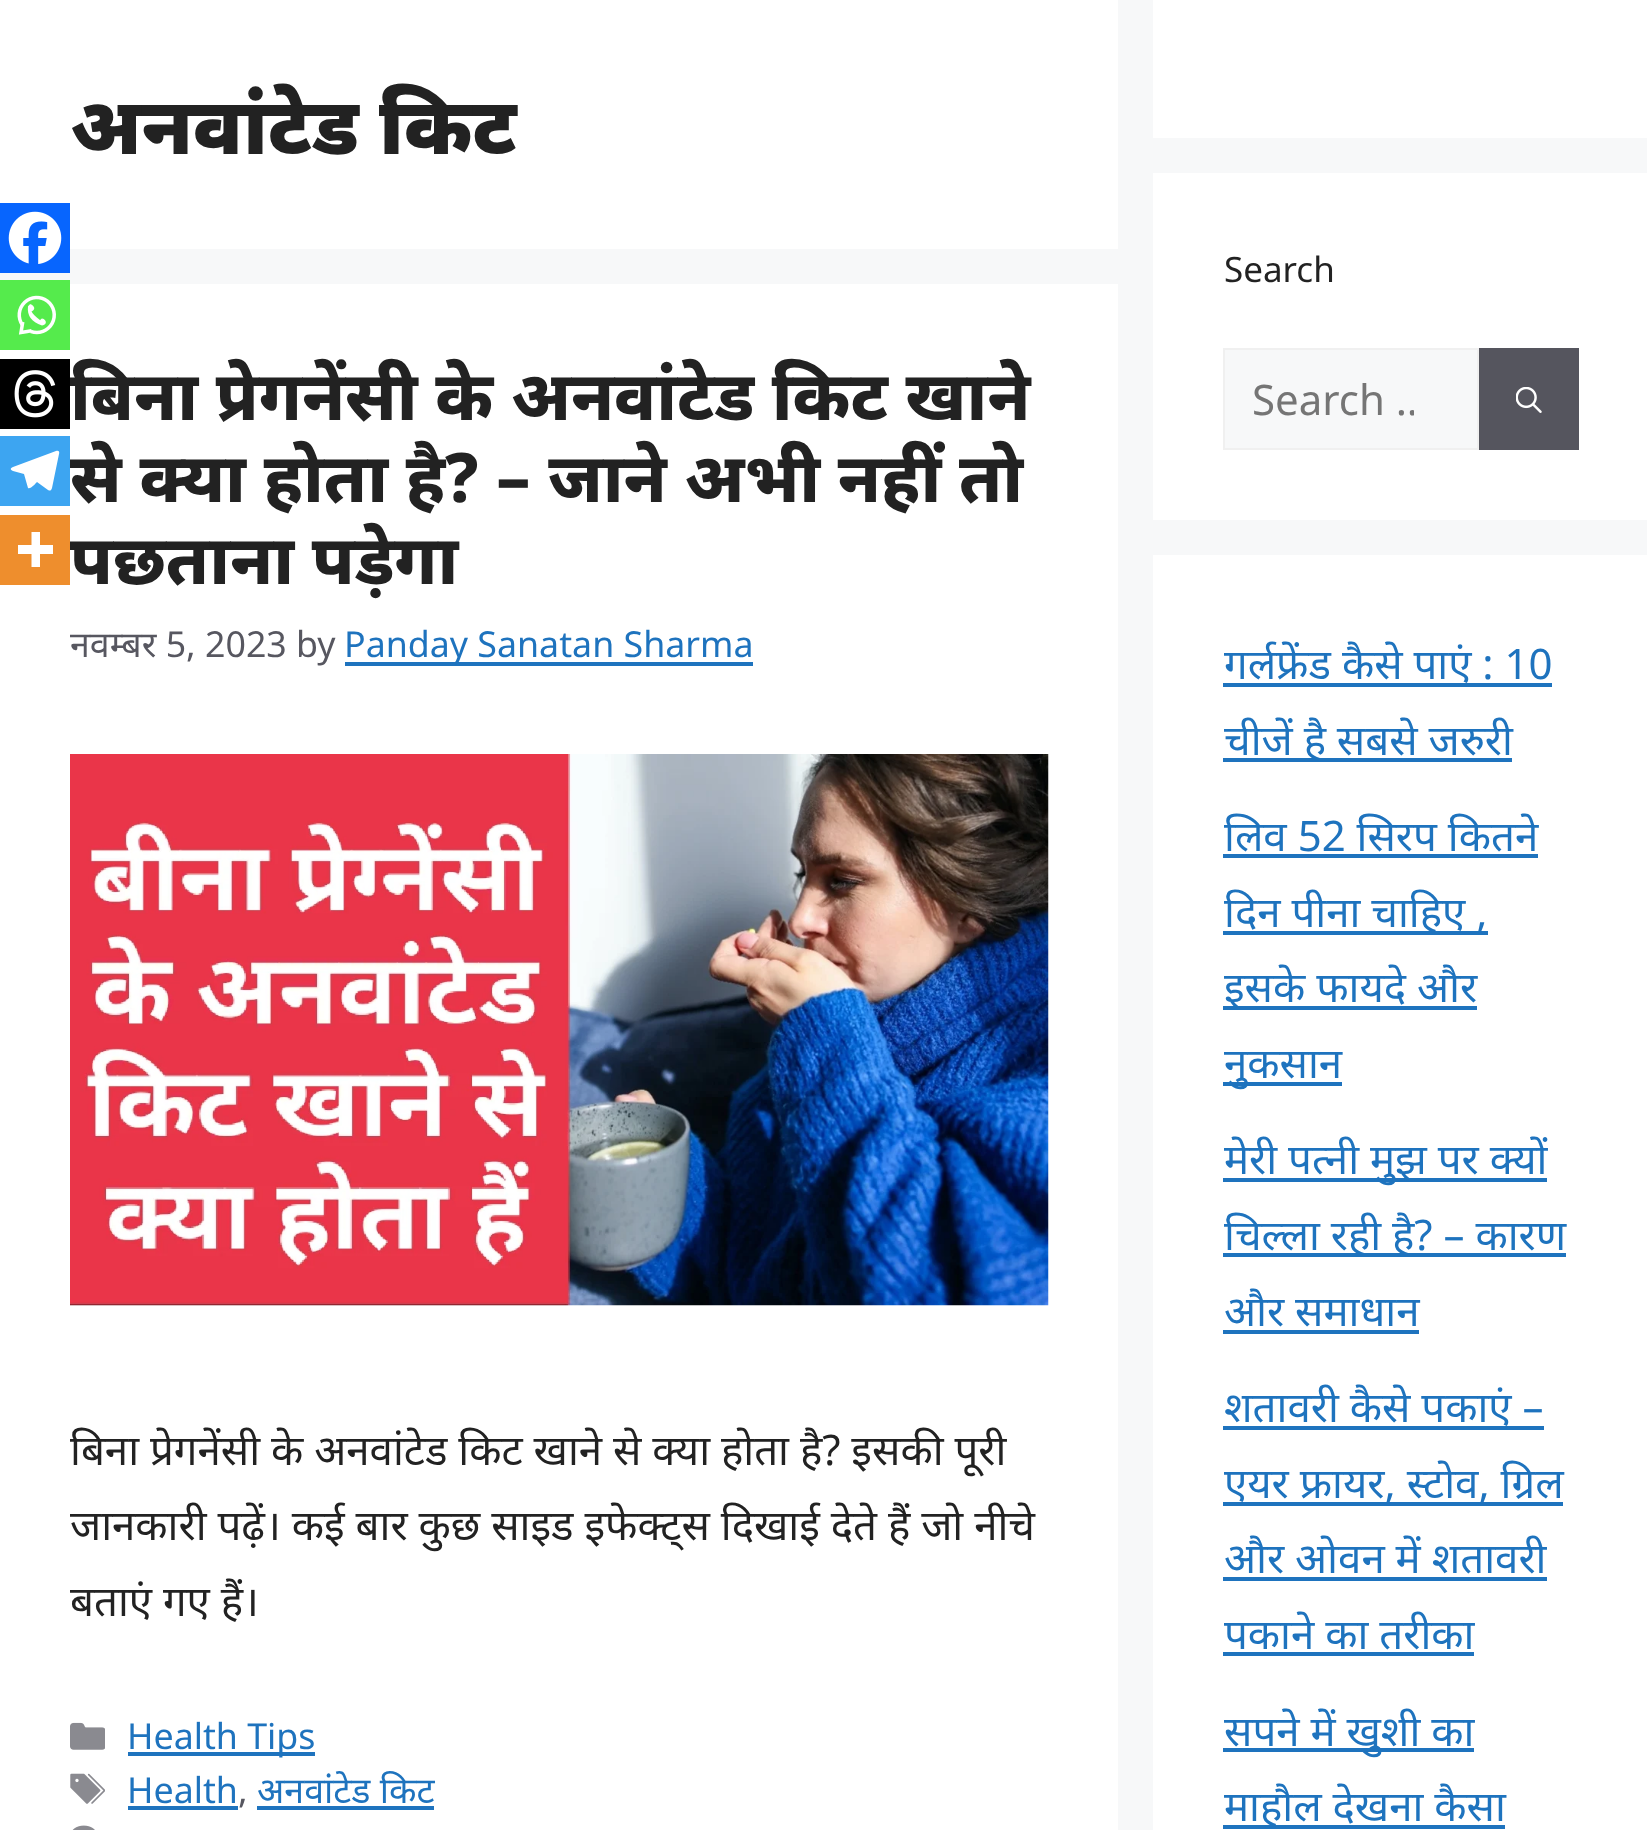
<svg xmlns="http://www.w3.org/2000/svg" width="1647" height="1830" viewBox="0 0 1647 1830">
  <defs>
    <clipPath id="clip1"><rect x="1251" y="369" width="163" height="58"/></clipPath>
  </defs>
  <rect width="100%" height="100%" fill="#f7f8f9"/>
  <rect x="0" y="0" width="1118" height="249" fill="#ffffff"/>
  <text x="70" y="154" font-family="Noto Sans" font-size="78.75" font-weight="900" fill="#222222">अनवांटेड किट</text>
  <rect x="0" y="284" width="1118" height="1546" fill="#ffffff"/>
  <text x="70" y="420" font-family="Noto Sans" font-size="68.25" font-weight="800" fill="#222222">बिना प्रेगनेंसी के अनवांटेड किट खाने</text>
  <text x="70" y="502" font-family="Noto Sans" font-size="68.25" font-weight="800" fill="#222222">से क्या होता है? – जाने अभी नहीं तो</text>
  <text x="70" y="584" font-family="Noto Sans" font-size="68.25" font-weight="800" fill="#222222">पछताना पड़ेगा</text>
  <text x="70" y="657" font-family="Noto Sans" font-size="35.75" fill="#575760">नवम्बर 5, 2023 by</text>
  <rect x="345" y="662" width="408" height="4" fill="#1e73be"/>
  <text x="344" y="657" font-family="Noto Sans" font-size="35.75" fill="#1e73be">Panday Sanatan Sharma</text>
  <image x="70" y="754" width="979" height="552" href="img1.png"/>
  <rect x="0" y="203" width="70" height="70" fill="#0765fe"/>
  <image x="8" y="211" width="54" height="53" href="img2.png"/>
  <rect x="0" y="280" width="70" height="70" fill="#55eb4c"/>
  <image x="17" y="295" width="39" height="40" href="img3.png"/>
  <rect x="0" y="359" width="70" height="70" fill="#000000"/>
  <image x="14" y="370" width="42" height="48" href="img4.png"/>
  <rect x="0" y="436" width="70" height="70" fill="#3da5f1"/>
  <path d="M56 451L13 467C10 468 10 470 13 471L24 474L28 488C30 490 36 483 37 482L48 490C50 491 51 491 52 488L59 454C60 451 58 450 56 451Z" fill="#ffffff"/>
  <rect x="0" y="515" width="70" height="70" fill="#ee8e2d"/>
  <path d="M40 545V532H31.5V545H18V554H31.5V567H40V554H53V545Z" fill="#ffffff" fill-rule="evenodd"/>
  <text x="70" y="1465" font-family="Noto Sans" font-size="42" fill="#222222">बिना प्रेगनेंसी के अनवांटेड किट खाने से क्या होता है? इसकी पूरी</text>
  <text x="70" y="1540" font-family="Noto Sans" font-size="42" fill="#222222">जानकारी पढ़ें। कई बार कुछ साइड इफेक्ट्स दिखाई देते हैं जो नीचे</text>
  <text x="70" y="1616" font-family="Noto Sans" font-size="42" fill="#222222">बताएं गए हैं।</text>
  <image x="70" y="1722" width="35" height="28" href="img5.png"/>
  <rect x="128" y="1752" width="187" height="4" fill="#1e73be"/>
  <text x="127" y="1749" font-family="Noto Sans" font-size="35.75" fill="#1e73be">Health Tips</text>
  <image x="70" y="1773" width="35" height="31" href="img6.png"/>
  <text x="127" y="1803" font-family="Noto Sans" font-size="35.75" fill="#1e73be">Health</text>
  <rect x="128" y="1806" width="110" height="4" fill="#1e73be"/>
  <text x="238" y="1803" font-family="Noto Sans" font-size="35.75" fill="#575760">,</text>
  <text x="257" y="1803" font-family="Noto Sans" font-size="35.75" fill="#1e73be">अनवांटेड किट</text>
  <rect x="257" y="1806" width="177" height="4" fill="#1e73be"/>
  <image x="72" y="1825" width="23" height="5" href="img7.png"/>
  <rect x="1153" y="0" width="494" height="138" fill="#ffffff"/>
  <rect x="1153" y="173" width="494" height="347" fill="#ffffff"/>
  <text x="1224" y="282" font-family="Noto Sans" font-size="35" fill="#222222">Search</text>
  <rect x="1224" y="349" width="254" height="100" fill="#f7f8f9" stroke="#f0f0f0" stroke-width="2"/>
  <g clip-path="url(#clip1)">
    <text x="1252" y="415" font-family="Noto Sans" font-size="42" fill="#757575">Search …</text>
  </g>
  <rect x="1479" y="348" width="100" height="102" fill="#55555e"/>
  <image x="1516" y="387" width="26" height="26" href="img8.png"/>
  <rect x="1153" y="555" width="494" height="1275" fill="#ffffff"/>
  <text x="1224" y="679" font-family="Noto Sans" font-size="42" fill="#1e73be">गर्लफ्रेंड कैसे पाएं : 10</text>
  <rect x="1223" y="683" width="329" height="4" fill="#1e73be"/>
  <rect x="1223" y="758" width="289" height="4" fill="#1e73be"/>
  <text x="1224" y="755" font-family="Noto Sans" font-size="42" fill="#1e73be">चीजें है सबसे जरुरी</text>
  <text x="1224" y="851" font-family="Noto Sans" font-size="42" fill="#1e73be">लिव 52 सिरप कितने</text>
  <rect x="1223" y="854" width="315" height="4" fill="#1e73be"/>
  <rect x="1223" y="931" width="265" height="4" fill="#1e73be"/>
  <text x="1224" y="927" font-family="Noto Sans" font-size="42" fill="#1e73be">दिन पीना चाहिए ,</text>
  <rect x="1223" y="1006" width="254" height="4" fill="#1e73be"/>
  <text x="1224" y="1002" font-family="Noto Sans" font-size="42" fill="#1e73be">इसके फायदे और</text>
  <rect x="1223" y="1082" width="119" height="4" fill="#1e73be"/>
  <text x="1224" y="1078" font-family="Noto Sans" font-size="42" fill="#1e73be">नुकसान</text>
  <rect x="1223" y="1178" width="324" height="4" fill="#1e73be"/>
  <text x="1224" y="1174" font-family="Noto Sans" font-size="42" fill="#1e73be">मेरी पत्नी मुझ पर क्यों</text>
  <rect x="1223" y="1253" width="343" height="4" fill="#1e73be"/>
  <text x="1224" y="1250" font-family="Noto Sans" font-size="42" fill="#1e73be">चिल्ला रही है? – कारण</text>
  <text x="1224" y="1326" font-family="Noto Sans" font-size="42" fill="#1e73be">और समाधान</text>
  <rect x="1223" y="1330" width="196" height="4" fill="#1e73be"/>
  <text x="1224" y="1422" font-family="Noto Sans" font-size="42" fill="#1e73be">शतावरी कैसे पकाएं –</text>
  <rect x="1223" y="1426" width="321" height="4" fill="#1e73be"/>
  <rect x="1223" y="1502" width="340" height="4" fill="#1e73be"/>
  <text x="1224" y="1498" font-family="Noto Sans" font-size="42" fill="#1e73be">एयर फ्रायर, स्टोव, ग्रिल</text>
  <text x="1224" y="1573" font-family="Noto Sans" font-size="42" fill="#1e73be">और ओवन में शतावरी</text>
  <rect x="1223" y="1577" width="324" height="4" fill="#1e73be"/>
  <text x="1224" y="1649" font-family="Noto Sans" font-size="42" fill="#1e73be">पकाने का तरीका</text>
  <rect x="1223" y="1652" width="251" height="4" fill="#1e73be"/>
  <rect x="1223" y="1748" width="251" height="4" fill="#1e73be"/>
  <text x="1224" y="1746" font-family="Noto Sans" font-size="42" fill="#1e73be">सपने में खुशी का</text>
  <rect x="1223" y="1825" width="282" height="4" fill="#1e73be"/>
  <text x="1224" y="1821" font-family="Noto Sans" font-size="42" fill="#1e73be">माहौल देखना कैसा</text>
</svg>
